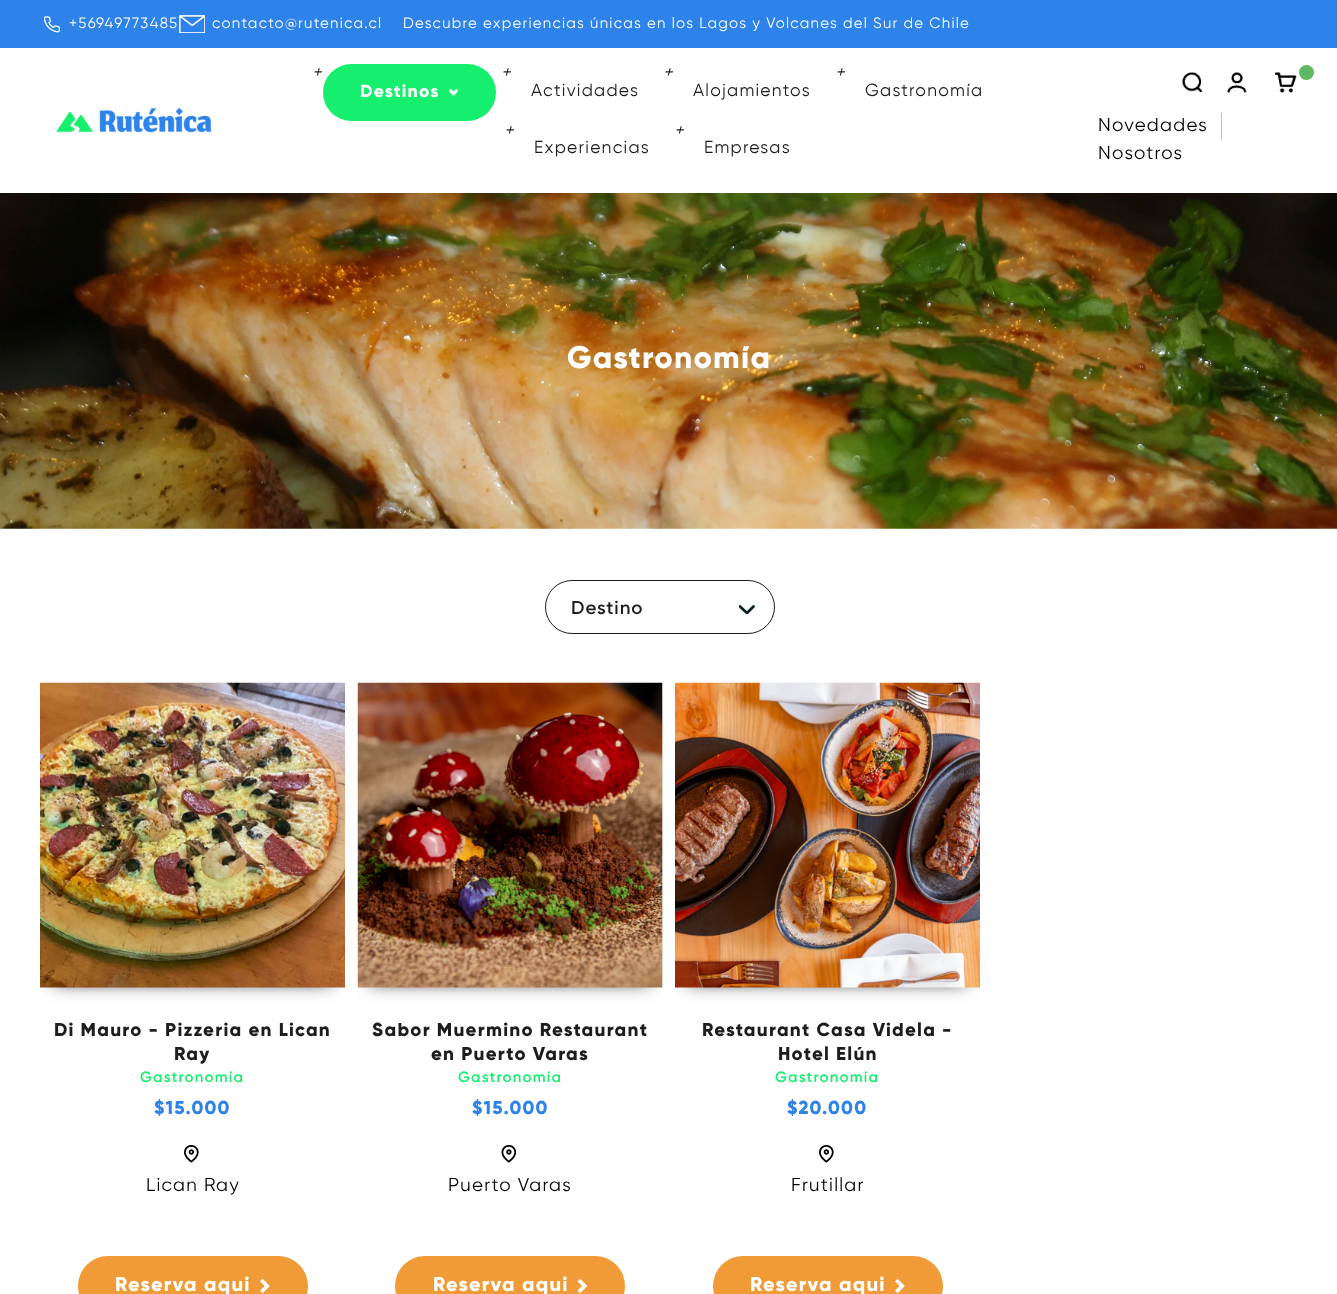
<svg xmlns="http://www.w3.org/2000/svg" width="1337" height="1294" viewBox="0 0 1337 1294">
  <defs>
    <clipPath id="clip1"><rect x="739" y="605" width="16" height="9"/></clipPath>
    <clipPath id="clip2"><rect x="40" y="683" width="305" height="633"/></clipPath>
    <filter id="blur1" x="-50%" y="-200%" width="200%" height="500%"><feGaussianBlur stdDeviation="9.5"/></filter>
    <clipPath id="clip3"><rect x="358" y="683" width="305" height="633"/></clipPath>
    <clipPath id="clip4"><rect x="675" y="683" width="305" height="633"/></clipPath>
  </defs>
  <rect width="100%" height="100%" fill="#ffffff"/>
  <rect x="0" y="0" width="1337" height="48" fill="#2d83ea"/>
  <image x="44" y="16" width="16" height="17" href="img1.png"/>
  <text x="69" y="28" font-family="Gilroy" font-size="15" letter-spacing="1.25" fill="#ffffff">+56949773485</text>
  <image x="179" y="15" width="26" height="18" href="img2.png"/>
  <text x="212" y="28" font-family="Gilroy" font-size="15" letter-spacing="1.25" fill="#ffffff">contacto@rutenica.cl</text>
  <text x="403" y="28" font-family="Gilroy" font-size="15" letter-spacing="1.25" fill="#ffffff">Descubre experiencias únicas en los Lagos y Volcanes del Sur de Chile</text>
  <image x="56" y="107" width="156" height="26" href="img3.png"/>
  <text x="312" y="78" font-family="Gilroy" font-size="17.5" font-style="italic" letter-spacing="1.25" fill="#1d1d1d">+</text>
  <rect x="323" y="64" width="173" height="57" rx="28.5" fill="#16ef6e"/>
  <image x="448" y="88" width="11" height="9" href="img4.png"/>
  <text x="360" y="97" font-family="Gilroy" font-size="17.5" font-weight="800" letter-spacing="1.25" fill="#ffffff">Destinos</text>
  <text x="501" y="78" font-family="Gilroy" font-size="17.5" font-style="italic" letter-spacing="1.25" fill="#1d1d1d">+</text>
  <text x="531" y="96" font-family="Gilroy" font-size="17.5" letter-spacing="1.25" fill="#1d1d1d">Actividades</text>
  <text x="663" y="78" font-family="Gilroy" font-size="17.5" font-style="italic" letter-spacing="1.25" fill="#1d1d1d">+</text>
  <text x="693" y="96" font-family="Gilroy" font-size="17.5" letter-spacing="1.25" fill="#1d1d1d">Alojamientos</text>
  <text x="835" y="78" font-family="Gilroy" font-size="17.5" font-style="italic" letter-spacing="1.25" fill="#1d1d1d">+</text>
  <text x="865" y="96" font-family="Gilroy" font-size="17.5" letter-spacing="1.25" fill="#1d1d1d">Gastronomía</text>
  <text x="504" y="136" font-family="Gilroy" font-size="17.5" font-style="italic" letter-spacing="1.25" fill="#1d1d1d">+</text>
  <text x="534" y="153" font-family="Gilroy" font-size="17.5" letter-spacing="1.25" fill="#1d1d1d">Experiencias</text>
  <text x="674" y="136" font-family="Gilroy" font-size="17.5" font-style="italic" letter-spacing="1.25" fill="#1d1d1d">+</text>
  <text x="704" y="153" font-family="Gilroy" font-size="17.5" letter-spacing="1.25" fill="#1d1d1d">Empresas</text>
  <image x="1182" y="72" width="21" height="21" href="img5.png"/>
  <image x="1227" y="72" width="20" height="21" href="img6.png"/>
  <image x="1275" y="72" width="22" height="21" href="img7.png"/>
  <circle cx="1306.5" cy="72.5" r="7.5" fill="#5cb862"/>
  <rect x="1221" y="113" width="1" height="27" fill="#c1c1c1"/>
  <text x="1098" y="131" font-family="Gilroy" font-size="18.75" letter-spacing="1.25" fill="#000000">Novedades</text>
  <text x="1098" y="159" font-family="Gilroy" font-size="18.75" letter-spacing="1.25" fill="#000000">Nosotros</text>
  <image x="0" y="193" width="1337" height="336" href="img8.png"/>
  <text x="567" y="368" font-family="Gilroy" font-size="31.25" font-weight="800" letter-spacing="1.25" fill="#ffffff">Gastronomía</text>
  <rect x="545.5" y="580.5" width="229" height="53" rx="26.5" fill="none" stroke="#1d1d1d"/>
  <text x="571" y="614" font-family="Gilroy" font-size="18.75" font-weight="600" letter-spacing="1" fill="#1d1d1d">Destino</text>
  <g clip-path="url(#clip1)">
    <path d="M740 606.5L747 613L753.5 606.5" fill="none" stroke="#011f23" stroke-width="2.7" stroke-linecap="round" stroke-linejoin="round"/>
  </g>
  <g clip-path="url(#clip2)">
    <rect x="54" y="704" width="277" height="277" fill="#000000" filter="url(#blur1)"/>
  </g>
  <image x="40" y="682" width="305" height="306" href="img9.png"/>
  <text x="54" y="1036" font-family="Gilroy" font-size="18.75" font-weight="800" letter-spacing="1.25" fill="#1d1d1d">Di Mauro - Pizzeria en Lican</text>
  <text x="174" y="1060" font-family="Gilroy" font-size="18.75" font-weight="800" letter-spacing="1.25" fill="#1d1d1d">Ray</text>
  <text x="140" y="1082" font-family="Gilroy" font-size="15" font-weight="600" letter-spacing="1.25" fill="#16ef6e">Gastronomía</text>
  <text x="154" y="1114" font-family="Gilroy" font-size="18.75" font-weight="800" letter-spacing="1.25" fill="#2d83ea">$15.000</text>
  <image x="184" y="1145" width="15" height="18" href="img10.png"/>
  <text x="146" y="1191" font-family="Gilroy" font-size="18.75" letter-spacing="1.25" fill="#000000">Lican Ray</text>
  <rect x="78" y="1256" width="230" height="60" rx="30" fill="#f19b38"/>
  <image x="260" y="1278" width="10" height="15" href="img11.png"/>
  <text x="115" y="1291" font-family="Gilroy" font-size="20" font-weight="800" letter-spacing="1.25" fill="#ffffff">Reserva aqui</text>
  <g clip-path="url(#clip3)">
    <rect x="371" y="704" width="278" height="277" fill="#000000" filter="url(#blur1)"/>
  </g>
  <image x="357" y="682" width="306" height="306" href="img12.png"/>
  <text x="372" y="1036" font-family="Gilroy" font-size="18.75" font-weight="800" letter-spacing="1.25" fill="#1d1d1d">Sabor Muermino Restaurant</text>
  <text x="431" y="1060" font-family="Gilroy" font-size="18.75" font-weight="800" letter-spacing="1.25" fill="#1d1d1d">en Puerto Varas</text>
  <text x="458" y="1082" font-family="Gilroy" font-size="15" font-weight="600" letter-spacing="1.25" fill="#16ef6e">Gastronomía</text>
  <text x="472" y="1114" font-family="Gilroy" font-size="18.75" font-weight="800" letter-spacing="1.25" fill="#2d83ea">$15.000</text>
  <image x="501" y="1145" width="15" height="18" href="img13.png"/>
  <text x="448" y="1191" font-family="Gilroy" font-size="18.75" letter-spacing="1.25" fill="#000000">Puerto Varas</text>
  <rect x="395" y="1256" width="230" height="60" rx="30" fill="#f19b38"/>
  <image x="577" y="1278" width="11" height="15" href="img14.png"/>
  <text x="433" y="1291" font-family="Gilroy" font-size="20" font-weight="800" letter-spacing="1.25" fill="#ffffff">Reserva aqui</text>
  <g clip-path="url(#clip4)">
    <rect x="689" y="704" width="277" height="277" fill="#000000" filter="url(#blur1)"/>
  </g>
  <image x="675" y="682" width="305" height="306" href="img15.png"/>
  <text x="702" y="1036" font-family="Gilroy" font-size="18.75" font-weight="800" letter-spacing="1.25" fill="#1d1d1d">Restaurant Casa Videla -</text>
  <text x="778" y="1060" font-family="Gilroy" font-size="18.75" font-weight="800" letter-spacing="1.25" fill="#1d1d1d">Hotel Elún</text>
  <text x="775" y="1082" font-family="Gilroy" font-size="15" font-weight="600" letter-spacing="1.25" fill="#16ef6e">Gastronomía</text>
  <text x="787" y="1114" font-family="Gilroy" font-size="18.75" font-weight="800" letter-spacing="1.25" fill="#2d83ea">$20.000</text>
  <image x="819" y="1145" width="15" height="18" href="img10.png"/>
  <text x="791" y="1191" font-family="Gilroy" font-size="18.75" letter-spacing="1.25" fill="#000000">Frutillar</text>
  <rect x="713" y="1256" width="230" height="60" rx="30" fill="#f19b38"/>
  <image x="895" y="1278" width="10" height="15" href="img11.png"/>
  <text x="750" y="1291" font-family="Gilroy" font-size="20" font-weight="800" letter-spacing="1.25" fill="#ffffff">Reserva aqui</text>
</svg>
